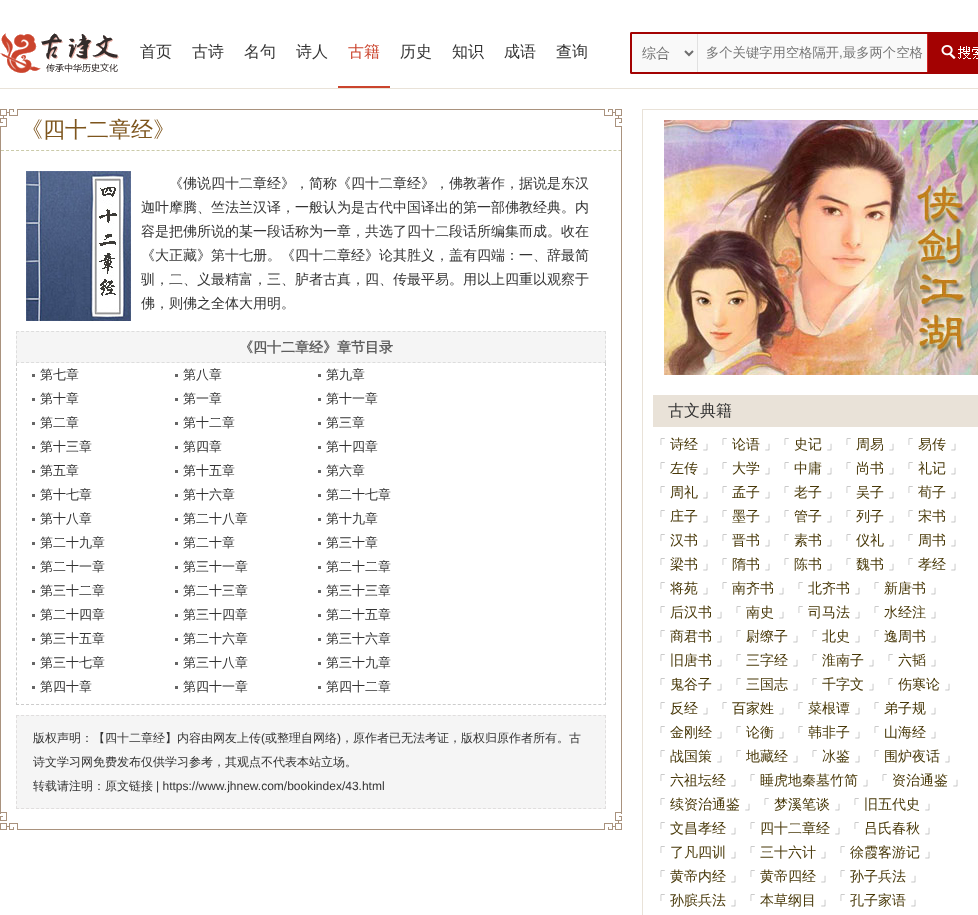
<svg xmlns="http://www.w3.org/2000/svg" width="978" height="915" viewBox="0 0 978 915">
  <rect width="100%" height="100%" fill="#ffffff"/>
  <rect x="0" y="88" width="978" height="1" fill="#e9e2d8"/>
  <image x="0" y="33" width="119" height="40" href="img1.png"/>
  <text x="140" y="57" font-family="WenQuanYi Zen Hei" font-size="16" font-weight="500" fill="#333333">首页</text>
  <text x="192" y="57" font-family="WenQuanYi Zen Hei" font-size="16" font-weight="500" fill="#333333">古诗</text>
  <text x="244" y="57" font-family="WenQuanYi Zen Hei" font-size="16" font-weight="500" fill="#333333">名句</text>
  <text x="296" y="57" font-family="WenQuanYi Zen Hei" font-size="16" font-weight="500" fill="#333333">诗人</text>
  <rect x="338" y="86" width="52" height="2" fill="#cb442d"/>
  <text x="348" y="57" font-family="WenQuanYi Zen Hei" font-size="16" font-weight="500" fill="#cb442d">古籍</text>
  <text x="400" y="57" font-family="WenQuanYi Zen Hei" font-size="16" font-weight="500" fill="#333333">历史</text>
  <text x="452" y="57" font-family="WenQuanYi Zen Hei" font-size="16" font-weight="500" fill="#333333">知识</text>
  <text x="504" y="57" font-family="WenQuanYi Zen Hei" font-size="16" font-weight="500" fill="#333333">成语</text>
  <text x="556" y="57" font-family="WenQuanYi Zen Hei" font-size="16" font-weight="500" fill="#333333">查询</text>
  <image x="630" y="32" width="348" height="42" href="img2.png"/>
  <rect x="677" y="49" width="11" height="6" fill="#f9f9f9"/>
  <rect x="697" y="34" width="1" height="38" fill="#e1e1e1"/>
  <path d="M685 51L689 55L693 51" fill="none" stroke="#6e6e6e" stroke-width="2"/>
  <text x="642" y="58" font-family="WenQuanYi Zen Hei" font-size="14" font-weight="500" fill="#6e6e6e">综合</text>
  <text x="706" y="57" font-family="WenQuanYi Zen Hei" font-size="13.3" font-weight="500" fill="#757575">多个关键字用空格隔开 最多两个空格</text>
  <text x="839" y="57" font-family="Liberation Sans" font-size="13.3" fill="#757575">,</text>
  <rect x="0.5" y="109.5" width="621" height="720" fill="none" stroke="#a9927e"/>
  <image x="0" y="109" width="18" height="18" href="img3.png"/>
  <path d="M1 150.5H621" fill="none" stroke="#cacaa9" stroke-dasharray="3 2.02"/>
  <text x="21" y="137" font-family="WenQuanYi Zen Hei" font-size="22" font-weight="500" fill="#7d551d">《四十二章经》</text>
  <image x="26" y="171" width="105" height="150" href="img4.png"/>
  <text x="169" y="188" font-family="WenQuanYi Zen Hei" font-size="14" font-weight="500" fill="#333333">《佛说四十二章经》，简称《四十二章经》，佛教著作，据说是东汉</text>
  <text x="141" y="212" font-family="WenQuanYi Zen Hei" font-size="14" font-weight="500" fill="#333333">迦叶摩腾、竺法兰汉译，一般认为是古代中国译出的第一部佛教经典。内</text>
  <text x="141" y="236" font-family="WenQuanYi Zen Hei" font-size="14" font-weight="500" fill="#333333">容是把佛所说的某一段话称为一章，共选了四十二段话所编集而成。收在</text>
  <text x="141" y="260" font-family="WenQuanYi Zen Hei" font-size="14" font-weight="500" fill="#333333">《大正藏》第十七册。《四十二章经》论其胜义，盖有四端：一、辞最简</text>
  <text x="141" y="284" font-family="WenQuanYi Zen Hei" font-size="14" font-weight="500" fill="#333333">驯，二、义最精富，三、胪者古真，四、传最平易。用以上四重以观察于</text>
  <text x="141" y="308" font-family="WenQuanYi Zen Hei" font-size="14" font-weight="500" fill="#333333">佛，则佛之全体大用明。</text>
  <rect x="16" y="331" width="590" height="32" fill="#f5f5f5"/>
  <path d="M16 331.5H606" fill="none" stroke="#dddddd" stroke-dasharray="3 2.02"/>
  <path d="M605.5 331V363" fill="none" stroke="#dddddd" stroke-dasharray="3 1.83"/>
  <path d="M16 362.5H606" fill="none" stroke="#dddddd" stroke-dasharray="3 2.02"/>
  <path d="M16.5 331V363" fill="none" stroke="#dddddd" stroke-dasharray="3 1.83"/>
  <text x="239" y="352" font-family="WenQuanYi Zen Hei" font-size="14" font-weight="bold" fill="#5e5e5e">《四十二章经》章节目录</text>
  <path d="M605.5 363V705" fill="none" stroke="#cccccc" stroke-dasharray="3 1.99"/>
  <path d="M16 704.5H606" fill="none" stroke="#cccccc" stroke-dasharray="3 2.02"/>
  <path d="M16.5 363V705" fill="none" stroke="#cccccc" stroke-dasharray="3 1.99"/>
  <rect x="32" y="374" width="3" height="3" fill="#666666"/>
  <text x="40" y="379" font-family="WenQuanYi Zen Hei" font-size="13" font-weight="500" fill="#333333">第七章</text>
  <rect x="175" y="374" width="3" height="3" fill="#666666"/>
  <text x="183" y="379" font-family="WenQuanYi Zen Hei" font-size="13" font-weight="500" fill="#333333">第八章</text>
  <rect x="318" y="374" width="3" height="3" fill="#666666"/>
  <text x="326" y="379" font-family="WenQuanYi Zen Hei" font-size="13" font-weight="500" fill="#333333">第九章</text>
  <rect x="32" y="398" width="3" height="3" fill="#666666"/>
  <text x="40" y="403" font-family="WenQuanYi Zen Hei" font-size="13" font-weight="500" fill="#333333">第十章</text>
  <rect x="175" y="398" width="3" height="3" fill="#666666"/>
  <text x="183" y="403" font-family="WenQuanYi Zen Hei" font-size="13" font-weight="500" fill="#333333">第一章</text>
  <rect x="318" y="398" width="3" height="3" fill="#666666"/>
  <text x="326" y="403" font-family="WenQuanYi Zen Hei" font-size="13" font-weight="500" fill="#333333">第十一章</text>
  <rect x="32" y="422" width="3" height="3" fill="#666666"/>
  <text x="40" y="427" font-family="WenQuanYi Zen Hei" font-size="13" font-weight="500" fill="#333333">第二章</text>
  <rect x="175" y="422" width="3" height="3" fill="#666666"/>
  <text x="183" y="427" font-family="WenQuanYi Zen Hei" font-size="13" font-weight="500" fill="#333333">第十二章</text>
  <rect x="318" y="422" width="3" height="3" fill="#666666"/>
  <text x="326" y="427" font-family="WenQuanYi Zen Hei" font-size="13" font-weight="500" fill="#333333">第三章</text>
  <rect x="32" y="446" width="3" height="3" fill="#666666"/>
  <text x="40" y="451" font-family="WenQuanYi Zen Hei" font-size="13" font-weight="500" fill="#333333">第十三章</text>
  <rect x="175" y="446" width="3" height="3" fill="#666666"/>
  <text x="183" y="451" font-family="WenQuanYi Zen Hei" font-size="13" font-weight="500" fill="#333333">第四章</text>
  <rect x="318" y="446" width="3" height="3" fill="#666666"/>
  <text x="326" y="451" font-family="WenQuanYi Zen Hei" font-size="13" font-weight="500" fill="#333333">第十四章</text>
  <rect x="32" y="470" width="3" height="3" fill="#666666"/>
  <text x="40" y="475" font-family="WenQuanYi Zen Hei" font-size="13" font-weight="500" fill="#333333">第五章</text>
  <rect x="175" y="470" width="3" height="3" fill="#666666"/>
  <text x="183" y="475" font-family="WenQuanYi Zen Hei" font-size="13" font-weight="500" fill="#333333">第十五章</text>
  <rect x="318" y="470" width="3" height="3" fill="#666666"/>
  <text x="326" y="475" font-family="WenQuanYi Zen Hei" font-size="13" font-weight="500" fill="#333333">第六章</text>
  <rect x="32" y="494" width="3" height="3" fill="#666666"/>
  <text x="40" y="499" font-family="WenQuanYi Zen Hei" font-size="13" font-weight="500" fill="#333333">第十七章</text>
  <rect x="175" y="494" width="3" height="3" fill="#666666"/>
  <text x="183" y="499" font-family="WenQuanYi Zen Hei" font-size="13" font-weight="500" fill="#333333">第十六章</text>
  <rect x="318" y="494" width="3" height="3" fill="#666666"/>
  <text x="326" y="499" font-family="WenQuanYi Zen Hei" font-size="13" font-weight="500" fill="#333333">第二十七章</text>
  <rect x="32" y="518" width="3" height="3" fill="#666666"/>
  <text x="40" y="523" font-family="WenQuanYi Zen Hei" font-size="13" font-weight="500" fill="#333333">第十八章</text>
  <rect x="175" y="518" width="3" height="3" fill="#666666"/>
  <text x="183" y="523" font-family="WenQuanYi Zen Hei" font-size="13" font-weight="500" fill="#333333">第二十八章</text>
  <rect x="318" y="518" width="3" height="3" fill="#666666"/>
  <text x="326" y="523" font-family="WenQuanYi Zen Hei" font-size="13" font-weight="500" fill="#333333">第十九章</text>
  <rect x="32" y="542" width="3" height="3" fill="#666666"/>
  <text x="40" y="547" font-family="WenQuanYi Zen Hei" font-size="13" font-weight="500" fill="#333333">第二十九章</text>
  <rect x="175" y="542" width="3" height="3" fill="#666666"/>
  <text x="183" y="547" font-family="WenQuanYi Zen Hei" font-size="13" font-weight="500" fill="#333333">第二十章</text>
  <rect x="318" y="542" width="3" height="3" fill="#666666"/>
  <text x="326" y="547" font-family="WenQuanYi Zen Hei" font-size="13" font-weight="500" fill="#333333">第三十章</text>
  <rect x="32" y="566" width="3" height="3" fill="#666666"/>
  <text x="40" y="571" font-family="WenQuanYi Zen Hei" font-size="13" font-weight="500" fill="#333333">第二十一章</text>
  <rect x="175" y="566" width="3" height="3" fill="#666666"/>
  <text x="183" y="571" font-family="WenQuanYi Zen Hei" font-size="13" font-weight="500" fill="#333333">第三十一章</text>
  <rect x="318" y="566" width="3" height="3" fill="#666666"/>
  <text x="326" y="571" font-family="WenQuanYi Zen Hei" font-size="13" font-weight="500" fill="#333333">第二十二章</text>
  <rect x="32" y="590" width="3" height="3" fill="#666666"/>
  <text x="40" y="595" font-family="WenQuanYi Zen Hei" font-size="13" font-weight="500" fill="#333333">第三十二章</text>
  <rect x="175" y="590" width="3" height="3" fill="#666666"/>
  <text x="183" y="595" font-family="WenQuanYi Zen Hei" font-size="13" font-weight="500" fill="#333333">第二十三章</text>
  <rect x="318" y="590" width="3" height="3" fill="#666666"/>
  <text x="326" y="595" font-family="WenQuanYi Zen Hei" font-size="13" font-weight="500" fill="#333333">第三十三章</text>
  <rect x="32" y="614" width="3" height="3" fill="#666666"/>
  <text x="40" y="619" font-family="WenQuanYi Zen Hei" font-size="13" font-weight="500" fill="#333333">第二十四章</text>
  <rect x="175" y="614" width="3" height="3" fill="#666666"/>
  <text x="183" y="619" font-family="WenQuanYi Zen Hei" font-size="13" font-weight="500" fill="#333333">第三十四章</text>
  <rect x="318" y="614" width="3" height="3" fill="#666666"/>
  <text x="326" y="619" font-family="WenQuanYi Zen Hei" font-size="13" font-weight="500" fill="#333333">第二十五章</text>
  <rect x="32" y="638" width="3" height="3" fill="#666666"/>
  <text x="40" y="643" font-family="WenQuanYi Zen Hei" font-size="13" font-weight="500" fill="#333333">第三十五章</text>
  <rect x="175" y="638" width="3" height="3" fill="#666666"/>
  <text x="183" y="643" font-family="WenQuanYi Zen Hei" font-size="13" font-weight="500" fill="#333333">第二十六章</text>
  <rect x="318" y="638" width="3" height="3" fill="#666666"/>
  <text x="326" y="643" font-family="WenQuanYi Zen Hei" font-size="13" font-weight="500" fill="#333333">第三十六章</text>
  <rect x="32" y="662" width="3" height="3" fill="#666666"/>
  <text x="40" y="667" font-family="WenQuanYi Zen Hei" font-size="13" font-weight="500" fill="#333333">第三十七章</text>
  <rect x="175" y="662" width="3" height="3" fill="#666666"/>
  <text x="183" y="667" font-family="WenQuanYi Zen Hei" font-size="13" font-weight="500" fill="#333333">第三十八章</text>
  <rect x="318" y="662" width="3" height="3" fill="#666666"/>
  <text x="326" y="667" font-family="WenQuanYi Zen Hei" font-size="13" font-weight="500" fill="#333333">第三十九章</text>
  <rect x="32" y="686" width="3" height="3" fill="#666666"/>
  <text x="40" y="691" font-family="WenQuanYi Zen Hei" font-size="13" font-weight="500" fill="#333333">第四十章</text>
  <rect x="175" y="686" width="3" height="3" fill="#666666"/>
  <text x="183" y="691" font-family="WenQuanYi Zen Hei" font-size="13" font-weight="500" fill="#333333">第四十一章</text>
  <rect x="318" y="686" width="3" height="3" fill="#666666"/>
  <text x="326" y="691" font-family="WenQuanYi Zen Hei" font-size="13" font-weight="500" fill="#333333">第四十二章</text>
  <rect x="16" y="715" width="590" height="94" fill="#f5f5f5"/>
  <path d="M16 715.5H606" fill="none" stroke="#e0dede" stroke-dasharray="3 2.02"/>
  <path d="M605.5 715V809" fill="none" stroke="#e0dede" stroke-dasharray="3 2.06"/>
  <path d="M16 808.5H606" fill="none" stroke="#e0dede" stroke-dasharray="3 2.02"/>
  <path d="M16.5 715V809" fill="none" stroke="#e0dede" stroke-dasharray="3 2.06"/>
  <text x="33" y="742" font-family="WenQuanYi Zen Hei" font-size="12" font-weight="500" fill="#333333">版权声明：【四十二章经】内容由网友上传</text>
  <text x="261" y="742" font-family="Liberation Sans" font-size="12" fill="#333333">(</text>
  <text x="265" y="742" font-family="WenQuanYi Zen Hei" font-size="12" font-weight="500" fill="#333333">或整理自网络</text>
  <text x="337" y="742" font-family="Liberation Sans" font-size="12" fill="#333333">)</text>
  <text x="341" y="742" font-family="WenQuanYi Zen Hei" font-size="12" font-weight="500" fill="#333333">，原作者已无法考证，版权归原作者所有。古</text>
  <text x="33" y="766" font-family="WenQuanYi Zen Hei" font-size="12" font-weight="500" fill="#333333">诗文学习网免费发布仅供学习参考，其观点不代表本站立场。</text>
  <text x="33" y="790" font-family="WenQuanYi Zen Hei" font-size="12" font-weight="500" fill="#333333">转载请注明：原文链接</text>
  <text x="156" y="790" font-family="Liberation Sans" font-size="12" fill="#333333">| https://www.jhnew.com/bookindex/43.html</text>
  <image x="604" y="109" width="18" height="18" href="img5.png"/>
  <image x="0" y="812" width="18" height="18" href="img6.png"/>
  <image x="604" y="812" width="18" height="18" href="img7.png"/>
  <rect x="642.5" y="109.5" width="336" height="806" fill="none" stroke="#e9e2d8"/>
  <image x="664" y="120" width="314" height="255" href="img8.png"/>
  <rect x="653" y="395" width="325" height="32" fill="#e9e2d8"/>
  <text x="668" y="416" font-family="WenQuanYi Zen Hei" font-size="16" font-weight="500" fill="#333333">古文典籍</text>
  <text x="653" y="449" font-family="WenQuanYi Zen Hei" font-size="13" font-weight="500" fill="#999999">「</text>
  <text x="670" y="449" font-family="WenQuanYi Zen Hei" font-size="14" font-weight="500" fill="#483808">诗经</text>
  <text x="702" y="449" font-family="WenQuanYi Zen Hei" font-size="13" font-weight="500" fill="#999999">」「</text>
  <text x="732" y="449" font-family="WenQuanYi Zen Hei" font-size="14" font-weight="500" fill="#483808">论语</text>
  <text x="764" y="449" font-family="WenQuanYi Zen Hei" font-size="13" font-weight="500" fill="#999999">」「</text>
  <text x="794" y="449" font-family="WenQuanYi Zen Hei" font-size="14" font-weight="500" fill="#483808">史记</text>
  <text x="826" y="449" font-family="WenQuanYi Zen Hei" font-size="13" font-weight="500" fill="#999999">」「</text>
  <text x="856" y="449" font-family="WenQuanYi Zen Hei" font-size="14" font-weight="500" fill="#483808">周易</text>
  <text x="888" y="449" font-family="WenQuanYi Zen Hei" font-size="13" font-weight="500" fill="#999999">」「</text>
  <text x="918" y="449" font-family="WenQuanYi Zen Hei" font-size="14" font-weight="500" fill="#483808">易传</text>
  <text x="950" y="449" font-family="WenQuanYi Zen Hei" font-size="13" font-weight="500" fill="#999999">」</text>
  <text x="653" y="473" font-family="WenQuanYi Zen Hei" font-size="13" font-weight="500" fill="#999999">「</text>
  <text x="670" y="473" font-family="WenQuanYi Zen Hei" font-size="14" font-weight="500" fill="#483808">左传</text>
  <text x="702" y="473" font-family="WenQuanYi Zen Hei" font-size="13" font-weight="500" fill="#999999">」「</text>
  <text x="732" y="473" font-family="WenQuanYi Zen Hei" font-size="14" font-weight="500" fill="#483808">大学</text>
  <text x="764" y="473" font-family="WenQuanYi Zen Hei" font-size="13" font-weight="500" fill="#999999">」「</text>
  <text x="794" y="473" font-family="WenQuanYi Zen Hei" font-size="14" font-weight="500" fill="#483808">中庸</text>
  <text x="826" y="473" font-family="WenQuanYi Zen Hei" font-size="13" font-weight="500" fill="#999999">」「</text>
  <text x="856" y="473" font-family="WenQuanYi Zen Hei" font-size="14" font-weight="500" fill="#483808">尚书</text>
  <text x="888" y="473" font-family="WenQuanYi Zen Hei" font-size="13" font-weight="500" fill="#999999">」「</text>
  <text x="918" y="473" font-family="WenQuanYi Zen Hei" font-size="14" font-weight="500" fill="#483808">礼记</text>
  <text x="950" y="473" font-family="WenQuanYi Zen Hei" font-size="13" font-weight="500" fill="#999999">」</text>
  <text x="653" y="497" font-family="WenQuanYi Zen Hei" font-size="13" font-weight="500" fill="#999999">「</text>
  <text x="670" y="497" font-family="WenQuanYi Zen Hei" font-size="14" font-weight="500" fill="#483808">周礼</text>
  <text x="702" y="497" font-family="WenQuanYi Zen Hei" font-size="13" font-weight="500" fill="#999999">」「</text>
  <text x="732" y="497" font-family="WenQuanYi Zen Hei" font-size="14" font-weight="500" fill="#483808">孟子</text>
  <text x="764" y="497" font-family="WenQuanYi Zen Hei" font-size="13" font-weight="500" fill="#999999">」「</text>
  <text x="794" y="497" font-family="WenQuanYi Zen Hei" font-size="14" font-weight="500" fill="#483808">老子</text>
  <text x="826" y="497" font-family="WenQuanYi Zen Hei" font-size="13" font-weight="500" fill="#999999">」「</text>
  <text x="856" y="497" font-family="WenQuanYi Zen Hei" font-size="14" font-weight="500" fill="#483808">吴子</text>
  <text x="888" y="497" font-family="WenQuanYi Zen Hei" font-size="13" font-weight="500" fill="#999999">」「</text>
  <text x="918" y="497" font-family="WenQuanYi Zen Hei" font-size="14" font-weight="500" fill="#483808">荀子</text>
  <text x="950" y="497" font-family="WenQuanYi Zen Hei" font-size="13" font-weight="500" fill="#999999">」</text>
  <text x="653" y="521" font-family="WenQuanYi Zen Hei" font-size="13" font-weight="500" fill="#999999">「</text>
  <text x="670" y="521" font-family="WenQuanYi Zen Hei" font-size="14" font-weight="500" fill="#483808">庄子</text>
  <text x="702" y="521" font-family="WenQuanYi Zen Hei" font-size="13" font-weight="500" fill="#999999">」「</text>
  <text x="732" y="521" font-family="WenQuanYi Zen Hei" font-size="14" font-weight="500" fill="#483808">墨子</text>
  <text x="764" y="521" font-family="WenQuanYi Zen Hei" font-size="13" font-weight="500" fill="#999999">」「</text>
  <text x="794" y="521" font-family="WenQuanYi Zen Hei" font-size="14" font-weight="500" fill="#483808">管子</text>
  <text x="826" y="521" font-family="WenQuanYi Zen Hei" font-size="13" font-weight="500" fill="#999999">」「</text>
  <text x="856" y="521" font-family="WenQuanYi Zen Hei" font-size="14" font-weight="500" fill="#483808">列子</text>
  <text x="888" y="521" font-family="WenQuanYi Zen Hei" font-size="13" font-weight="500" fill="#999999">」「</text>
  <text x="918" y="521" font-family="WenQuanYi Zen Hei" font-size="14" font-weight="500" fill="#483808">宋书</text>
  <text x="950" y="521" font-family="WenQuanYi Zen Hei" font-size="13" font-weight="500" fill="#999999">」</text>
  <text x="653" y="545" font-family="WenQuanYi Zen Hei" font-size="13" font-weight="500" fill="#999999">「</text>
  <text x="670" y="545" font-family="WenQuanYi Zen Hei" font-size="14" font-weight="500" fill="#483808">汉书</text>
  <text x="702" y="545" font-family="WenQuanYi Zen Hei" font-size="13" font-weight="500" fill="#999999">」「</text>
  <text x="732" y="545" font-family="WenQuanYi Zen Hei" font-size="14" font-weight="500" fill="#483808">晋书</text>
  <text x="764" y="545" font-family="WenQuanYi Zen Hei" font-size="13" font-weight="500" fill="#999999">」「</text>
  <text x="794" y="545" font-family="WenQuanYi Zen Hei" font-size="14" font-weight="500" fill="#483808">素书</text>
  <text x="826" y="545" font-family="WenQuanYi Zen Hei" font-size="13" font-weight="500" fill="#999999">」「</text>
  <text x="856" y="545" font-family="WenQuanYi Zen Hei" font-size="14" font-weight="500" fill="#483808">仪礼</text>
  <text x="888" y="545" font-family="WenQuanYi Zen Hei" font-size="13" font-weight="500" fill="#999999">」「</text>
  <text x="918" y="545" font-family="WenQuanYi Zen Hei" font-size="14" font-weight="500" fill="#483808">周书</text>
  <text x="950" y="545" font-family="WenQuanYi Zen Hei" font-size="13" font-weight="500" fill="#999999">」</text>
  <text x="653" y="569" font-family="WenQuanYi Zen Hei" font-size="13" font-weight="500" fill="#999999">「</text>
  <text x="670" y="569" font-family="WenQuanYi Zen Hei" font-size="14" font-weight="500" fill="#483808">梁书</text>
  <text x="702" y="569" font-family="WenQuanYi Zen Hei" font-size="13" font-weight="500" fill="#999999">」「</text>
  <text x="732" y="569" font-family="WenQuanYi Zen Hei" font-size="14" font-weight="500" fill="#483808">隋书</text>
  <text x="764" y="569" font-family="WenQuanYi Zen Hei" font-size="13" font-weight="500" fill="#999999">」「</text>
  <text x="794" y="569" font-family="WenQuanYi Zen Hei" font-size="14" font-weight="500" fill="#483808">陈书</text>
  <text x="826" y="569" font-family="WenQuanYi Zen Hei" font-size="13" font-weight="500" fill="#999999">」「</text>
  <text x="856" y="569" font-family="WenQuanYi Zen Hei" font-size="14" font-weight="500" fill="#483808">魏书</text>
  <text x="888" y="569" font-family="WenQuanYi Zen Hei" font-size="13" font-weight="500" fill="#999999">」「</text>
  <text x="918" y="569" font-family="WenQuanYi Zen Hei" font-size="14" font-weight="500" fill="#483808">孝经</text>
  <text x="950" y="569" font-family="WenQuanYi Zen Hei" font-size="13" font-weight="500" fill="#999999">」</text>
  <text x="653" y="593" font-family="WenQuanYi Zen Hei" font-size="13" font-weight="500" fill="#999999">「</text>
  <text x="670" y="593" font-family="WenQuanYi Zen Hei" font-size="14" font-weight="500" fill="#483808">将苑</text>
  <text x="702" y="593" font-family="WenQuanYi Zen Hei" font-size="13" font-weight="500" fill="#999999">」「</text>
  <text x="732" y="593" font-family="WenQuanYi Zen Hei" font-size="14" font-weight="500" fill="#483808">南齐书</text>
  <text x="778" y="593" font-family="WenQuanYi Zen Hei" font-size="13" font-weight="500" fill="#999999">」「</text>
  <text x="808" y="593" font-family="WenQuanYi Zen Hei" font-size="14" font-weight="500" fill="#483808">北齐书</text>
  <text x="854" y="593" font-family="WenQuanYi Zen Hei" font-size="13" font-weight="500" fill="#999999">」「</text>
  <text x="884" y="593" font-family="WenQuanYi Zen Hei" font-size="14" font-weight="500" fill="#483808">新唐书</text>
  <text x="930" y="593" font-family="WenQuanYi Zen Hei" font-size="13" font-weight="500" fill="#999999">」</text>
  <text x="653" y="617" font-family="WenQuanYi Zen Hei" font-size="13" font-weight="500" fill="#999999">「</text>
  <text x="670" y="617" font-family="WenQuanYi Zen Hei" font-size="14" font-weight="500" fill="#483808">后汉书</text>
  <text x="716" y="617" font-family="WenQuanYi Zen Hei" font-size="13" font-weight="500" fill="#999999">」「</text>
  <text x="746" y="617" font-family="WenQuanYi Zen Hei" font-size="14" font-weight="500" fill="#483808">南史</text>
  <text x="778" y="617" font-family="WenQuanYi Zen Hei" font-size="13" font-weight="500" fill="#999999">」「</text>
  <text x="808" y="617" font-family="WenQuanYi Zen Hei" font-size="14" font-weight="500" fill="#483808">司马法</text>
  <text x="854" y="617" font-family="WenQuanYi Zen Hei" font-size="13" font-weight="500" fill="#999999">」「</text>
  <text x="884" y="617" font-family="WenQuanYi Zen Hei" font-size="14" font-weight="500" fill="#483808">水经注</text>
  <text x="930" y="617" font-family="WenQuanYi Zen Hei" font-size="13" font-weight="500" fill="#999999">」</text>
  <text x="653" y="641" font-family="WenQuanYi Zen Hei" font-size="13" font-weight="500" fill="#999999">「</text>
  <text x="670" y="641" font-family="WenQuanYi Zen Hei" font-size="14" font-weight="500" fill="#483808">商君书</text>
  <text x="716" y="641" font-family="WenQuanYi Zen Hei" font-size="13" font-weight="500" fill="#999999">」「</text>
  <text x="746" y="641" font-family="WenQuanYi Zen Hei" font-size="14" font-weight="500" fill="#483808">尉缭子</text>
  <text x="792" y="641" font-family="WenQuanYi Zen Hei" font-size="13" font-weight="500" fill="#999999">」「</text>
  <text x="822" y="641" font-family="WenQuanYi Zen Hei" font-size="14" font-weight="500" fill="#483808">北史</text>
  <text x="854" y="641" font-family="WenQuanYi Zen Hei" font-size="13" font-weight="500" fill="#999999">」「</text>
  <text x="884" y="641" font-family="WenQuanYi Zen Hei" font-size="14" font-weight="500" fill="#483808">逸周书</text>
  <text x="930" y="641" font-family="WenQuanYi Zen Hei" font-size="13" font-weight="500" fill="#999999">」</text>
  <text x="653" y="665" font-family="WenQuanYi Zen Hei" font-size="13" font-weight="500" fill="#999999">「</text>
  <text x="670" y="665" font-family="WenQuanYi Zen Hei" font-size="14" font-weight="500" fill="#483808">旧唐书</text>
  <text x="716" y="665" font-family="WenQuanYi Zen Hei" font-size="13" font-weight="500" fill="#999999">」「</text>
  <text x="746" y="665" font-family="WenQuanYi Zen Hei" font-size="14" font-weight="500" fill="#483808">三字经</text>
  <text x="792" y="665" font-family="WenQuanYi Zen Hei" font-size="13" font-weight="500" fill="#999999">」「</text>
  <text x="822" y="665" font-family="WenQuanYi Zen Hei" font-size="14" font-weight="500" fill="#483808">淮南子</text>
  <text x="868" y="665" font-family="WenQuanYi Zen Hei" font-size="13" font-weight="500" fill="#999999">」「</text>
  <text x="898" y="665" font-family="WenQuanYi Zen Hei" font-size="14" font-weight="500" fill="#483808">六韬</text>
  <text x="930" y="665" font-family="WenQuanYi Zen Hei" font-size="13" font-weight="500" fill="#999999">」</text>
  <text x="653" y="689" font-family="WenQuanYi Zen Hei" font-size="13" font-weight="500" fill="#999999">「</text>
  <text x="670" y="689" font-family="WenQuanYi Zen Hei" font-size="14" font-weight="500" fill="#483808">鬼谷子</text>
  <text x="716" y="689" font-family="WenQuanYi Zen Hei" font-size="13" font-weight="500" fill="#999999">」「</text>
  <text x="746" y="689" font-family="WenQuanYi Zen Hei" font-size="14" font-weight="500" fill="#483808">三国志</text>
  <text x="792" y="689" font-family="WenQuanYi Zen Hei" font-size="13" font-weight="500" fill="#999999">」「</text>
  <text x="822" y="689" font-family="WenQuanYi Zen Hei" font-size="14" font-weight="500" fill="#483808">千字文</text>
  <text x="868" y="689" font-family="WenQuanYi Zen Hei" font-size="13" font-weight="500" fill="#999999">」「</text>
  <text x="898" y="689" font-family="WenQuanYi Zen Hei" font-size="14" font-weight="500" fill="#483808">伤寒论</text>
  <text x="944" y="689" font-family="WenQuanYi Zen Hei" font-size="13" font-weight="500" fill="#999999">」</text>
  <text x="653" y="713" font-family="WenQuanYi Zen Hei" font-size="13" font-weight="500" fill="#999999">「</text>
  <text x="670" y="713" font-family="WenQuanYi Zen Hei" font-size="14" font-weight="500" fill="#483808">反经</text>
  <text x="702" y="713" font-family="WenQuanYi Zen Hei" font-size="13" font-weight="500" fill="#999999">」「</text>
  <text x="732" y="713" font-family="WenQuanYi Zen Hei" font-size="14" font-weight="500" fill="#483808">百家姓</text>
  <text x="778" y="713" font-family="WenQuanYi Zen Hei" font-size="13" font-weight="500" fill="#999999">」「</text>
  <text x="808" y="713" font-family="WenQuanYi Zen Hei" font-size="14" font-weight="500" fill="#483808">菜根谭</text>
  <text x="854" y="713" font-family="WenQuanYi Zen Hei" font-size="13" font-weight="500" fill="#999999">」「</text>
  <text x="884" y="713" font-family="WenQuanYi Zen Hei" font-size="14" font-weight="500" fill="#483808">弟子规</text>
  <text x="930" y="713" font-family="WenQuanYi Zen Hei" font-size="13" font-weight="500" fill="#999999">」</text>
  <text x="653" y="737" font-family="WenQuanYi Zen Hei" font-size="13" font-weight="500" fill="#999999">「</text>
  <text x="670" y="737" font-family="WenQuanYi Zen Hei" font-size="14" font-weight="500" fill="#483808">金刚经</text>
  <text x="716" y="737" font-family="WenQuanYi Zen Hei" font-size="13" font-weight="500" fill="#999999">」「</text>
  <text x="746" y="737" font-family="WenQuanYi Zen Hei" font-size="14" font-weight="500" fill="#483808">论衡</text>
  <text x="778" y="737" font-family="WenQuanYi Zen Hei" font-size="13" font-weight="500" fill="#999999">」「</text>
  <text x="808" y="737" font-family="WenQuanYi Zen Hei" font-size="14" font-weight="500" fill="#483808">韩非子</text>
  <text x="854" y="737" font-family="WenQuanYi Zen Hei" font-size="13" font-weight="500" fill="#999999">」「</text>
  <text x="884" y="737" font-family="WenQuanYi Zen Hei" font-size="14" font-weight="500" fill="#483808">山海经</text>
  <text x="930" y="737" font-family="WenQuanYi Zen Hei" font-size="13" font-weight="500" fill="#999999">」</text>
  <text x="653" y="761" font-family="WenQuanYi Zen Hei" font-size="13" font-weight="500" fill="#999999">「</text>
  <text x="670" y="761" font-family="WenQuanYi Zen Hei" font-size="14" font-weight="500" fill="#483808">战国策</text>
  <text x="716" y="761" font-family="WenQuanYi Zen Hei" font-size="13" font-weight="500" fill="#999999">」「</text>
  <text x="746" y="761" font-family="WenQuanYi Zen Hei" font-size="14" font-weight="500" fill="#483808">地藏经</text>
  <text x="792" y="761" font-family="WenQuanYi Zen Hei" font-size="13" font-weight="500" fill="#999999">」「</text>
  <text x="822" y="761" font-family="WenQuanYi Zen Hei" font-size="14" font-weight="500" fill="#483808">冰鉴</text>
  <text x="854" y="761" font-family="WenQuanYi Zen Hei" font-size="13" font-weight="500" fill="#999999">」「</text>
  <text x="884" y="761" font-family="WenQuanYi Zen Hei" font-size="14" font-weight="500" fill="#483808">围炉夜话</text>
  <text x="944" y="761" font-family="WenQuanYi Zen Hei" font-size="13" font-weight="500" fill="#999999">」</text>
  <text x="653" y="785" font-family="WenQuanYi Zen Hei" font-size="13" font-weight="500" fill="#999999">「</text>
  <text x="670" y="785" font-family="WenQuanYi Zen Hei" font-size="14" font-weight="500" fill="#483808">六祖坛经</text>
  <text x="730" y="785" font-family="WenQuanYi Zen Hei" font-size="13" font-weight="500" fill="#999999">」「</text>
  <text x="760" y="785" font-family="WenQuanYi Zen Hei" font-size="14" font-weight="500" fill="#483808">睡虎地秦墓竹简</text>
  <text x="862" y="785" font-family="WenQuanYi Zen Hei" font-size="13" font-weight="500" fill="#999999">」「</text>
  <text x="892" y="785" font-family="WenQuanYi Zen Hei" font-size="14" font-weight="500" fill="#483808">资治通鉴</text>
  <text x="952" y="785" font-family="WenQuanYi Zen Hei" font-size="13" font-weight="500" fill="#999999">」</text>
  <text x="653" y="809" font-family="WenQuanYi Zen Hei" font-size="13" font-weight="500" fill="#999999">「</text>
  <text x="670" y="809" font-family="WenQuanYi Zen Hei" font-size="14" font-weight="500" fill="#483808">续资治通鉴</text>
  <text x="744" y="809" font-family="WenQuanYi Zen Hei" font-size="13" font-weight="500" fill="#999999">」「</text>
  <text x="774" y="809" font-family="WenQuanYi Zen Hei" font-size="14" font-weight="500" fill="#483808">梦溪笔谈</text>
  <text x="834" y="809" font-family="WenQuanYi Zen Hei" font-size="13" font-weight="500" fill="#999999">」「</text>
  <text x="864" y="809" font-family="WenQuanYi Zen Hei" font-size="14" font-weight="500" fill="#483808">旧五代史</text>
  <text x="924" y="809" font-family="WenQuanYi Zen Hei" font-size="13" font-weight="500" fill="#999999">」</text>
  <text x="653" y="833" font-family="WenQuanYi Zen Hei" font-size="13" font-weight="500" fill="#999999">「</text>
  <text x="670" y="833" font-family="WenQuanYi Zen Hei" font-size="14" font-weight="500" fill="#483808">文昌孝经</text>
  <text x="730" y="833" font-family="WenQuanYi Zen Hei" font-size="13" font-weight="500" fill="#999999">」「</text>
  <text x="760" y="833" font-family="WenQuanYi Zen Hei" font-size="14" font-weight="500" fill="#483808">四十二章经</text>
  <text x="834" y="833" font-family="WenQuanYi Zen Hei" font-size="13" font-weight="500" fill="#999999">」「</text>
  <text x="864" y="833" font-family="WenQuanYi Zen Hei" font-size="14" font-weight="500" fill="#483808">吕氏春秋</text>
  <text x="924" y="833" font-family="WenQuanYi Zen Hei" font-size="13" font-weight="500" fill="#999999">」</text>
  <text x="653" y="857" font-family="WenQuanYi Zen Hei" font-size="13" font-weight="500" fill="#999999">「</text>
  <text x="670" y="857" font-family="WenQuanYi Zen Hei" font-size="14" font-weight="500" fill="#483808">了凡四训</text>
  <text x="730" y="857" font-family="WenQuanYi Zen Hei" font-size="13" font-weight="500" fill="#999999">」「</text>
  <text x="760" y="857" font-family="WenQuanYi Zen Hei" font-size="14" font-weight="500" fill="#483808">三十六计</text>
  <text x="820" y="857" font-family="WenQuanYi Zen Hei" font-size="13" font-weight="500" fill="#999999">」「</text>
  <text x="850" y="857" font-family="WenQuanYi Zen Hei" font-size="14" font-weight="500" fill="#483808">徐霞客游记</text>
  <text x="924" y="857" font-family="WenQuanYi Zen Hei" font-size="13" font-weight="500" fill="#999999">」</text>
  <text x="653" y="881" font-family="WenQuanYi Zen Hei" font-size="13" font-weight="500" fill="#999999">「</text>
  <text x="670" y="881" font-family="WenQuanYi Zen Hei" font-size="14" font-weight="500" fill="#483808">黄帝内经</text>
  <text x="730" y="881" font-family="WenQuanYi Zen Hei" font-size="13" font-weight="500" fill="#999999">」「</text>
  <text x="760" y="881" font-family="WenQuanYi Zen Hei" font-size="14" font-weight="500" fill="#483808">黄帝四经</text>
  <text x="820" y="881" font-family="WenQuanYi Zen Hei" font-size="13" font-weight="500" fill="#999999">」「</text>
  <text x="850" y="881" font-family="WenQuanYi Zen Hei" font-size="14" font-weight="500" fill="#483808">孙子兵法</text>
  <text x="910" y="881" font-family="WenQuanYi Zen Hei" font-size="13" font-weight="500" fill="#999999">」</text>
  <text x="653" y="905" font-family="WenQuanYi Zen Hei" font-size="13" font-weight="500" fill="#999999">「</text>
  <text x="670" y="905" font-family="WenQuanYi Zen Hei" font-size="14" font-weight="500" fill="#483808">孙膑兵法</text>
  <text x="730" y="905" font-family="WenQuanYi Zen Hei" font-size="13" font-weight="500" fill="#999999">」「</text>
  <text x="760" y="905" font-family="WenQuanYi Zen Hei" font-size="14" font-weight="500" fill="#483808">本草纲目</text>
  <text x="820" y="905" font-family="WenQuanYi Zen Hei" font-size="13" font-weight="500" fill="#999999">」「</text>
  <text x="850" y="905" font-family="WenQuanYi Zen Hei" font-size="14" font-weight="500" fill="#483808">孔子家语</text>
  <text x="910" y="905" font-family="WenQuanYi Zen Hei" font-size="13" font-weight="500" fill="#999999">」</text>
</svg>
